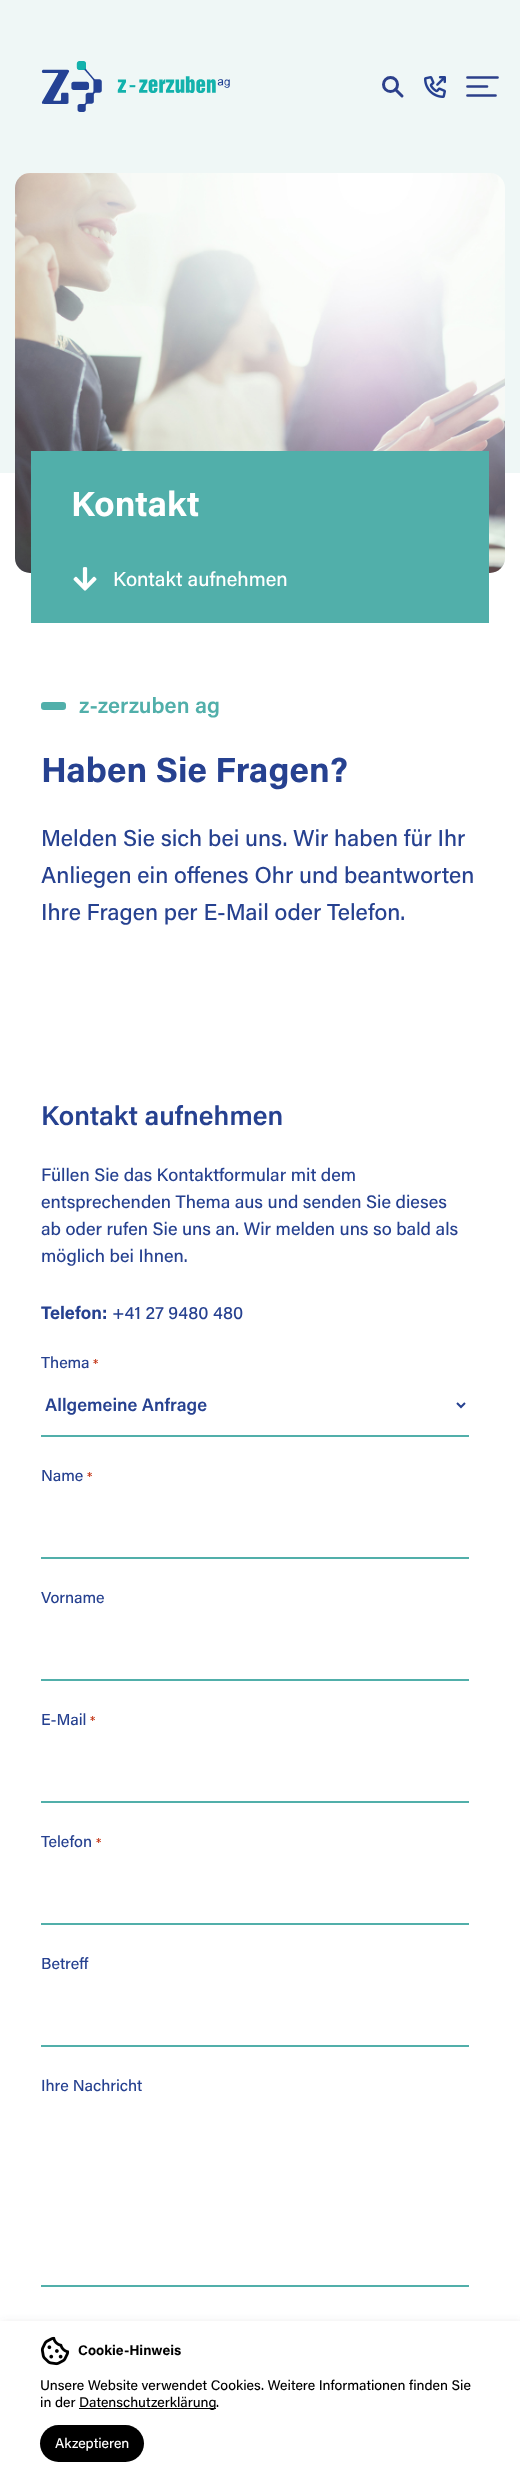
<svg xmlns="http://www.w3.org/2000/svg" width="520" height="2477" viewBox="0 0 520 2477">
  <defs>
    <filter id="blur1" x="-50%" y="-200%" width="200%" height="500%"><feGaussianBlur stdDeviation="4"/></filter>
  </defs>
  <rect width="100%" height="100%" fill="#ffffff"/>
  <rect x="0" y="0" width="520" height="473" fill="#eff7f6"/>
  <image x="41" y="61" width="189" height="51" href="img1.png"/>
  <circle cx="390.5" cy="84.5" r="7" fill="none" stroke="#2c408b" stroke-width="3"/>
  <path d="M395.5 89.5L402 96" fill="none" stroke="#2c408b" stroke-width="3" stroke-linecap="round"/>
  <image x="424" y="76" width="22" height="22" href="img2.png"/>
  <path d="M467.5 95.5H495.5M487 86.5H467.5M497.5 77.5H467.5" fill="none" stroke="#2c408b" stroke-width="2.7" stroke-linecap="round"/>
  <rect x="15" y="173" width="490" height="400" rx="15" fill="#eff7f6"/>
  <image x="15" y="173" width="490" height="400" href="img3.png"/>
  <rect x="31" y="451" width="458" height="172" fill="#51afaa"/>
  <text x="71" y="516" font-family="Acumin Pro" font-size="35" font-weight="bold" fill="#ffffff">Kontakt</text>
  <image x="73" y="567" width="24" height="24" href="img4.png"/>
  <text x="113" y="586" font-family="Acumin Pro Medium" font-size="20" font-weight="500" fill="#ffffff">Kontakt aufnehmen</text>
  <rect x="41" y="702" width="25" height="8" rx="3" fill="#51afaa"/>
  <text x="79" y="713" font-family="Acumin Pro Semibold" font-size="22" font-weight="600" fill="#51afaa">z-zerzuben ag</text>
  <text x="41" y="782" font-family="Acumin Pro" font-size="35" font-weight="bold" fill="#264190">Haben Sie Fragen?</text>
  <text x="41" y="846" font-family="Acumin Pro Medium" font-size="23" font-weight="500" fill="#264190">Melden Sie sich bei uns. Wir haben für Ihr</text>
  <text x="41" y="883" font-family="Acumin Pro Medium" font-size="23" font-weight="500" fill="#264190">Anliegen ein offenes Ohr und beantworten</text>
  <text x="41" y="920" font-family="Acumin Pro Medium" font-size="23" font-weight="500" fill="#264190">Ihre Fragen per E-Mail oder Telefon.</text>
  <text x="41" y="1125" font-family="Acumin Pro Semibold" font-size="27" font-weight="600" fill="#264190">Kontakt aufnehmen</text>
  <text x="41" y="1181" font-family="Acumin Pro Medium" font-size="18" font-weight="500" fill="#264190">Füllen Sie das Kontaktformular mit dem</text>
  <text x="41" y="1208" font-family="Acumin Pro Medium" font-size="18" font-weight="500" fill="#264190">entsprechenden Thema aus und senden Sie dieses</text>
  <text x="41" y="1235" font-family="Acumin Pro Medium" font-size="18" font-weight="500" fill="#264190">ab oder rufen Sie uns an. Wir melden uns so bald als</text>
  <text x="41" y="1262" font-family="Acumin Pro Medium" font-size="18" font-weight="500" fill="#264190">möglich bei Ihnen.</text>
  <text x="41" y="1319" font-family="Acumin Pro" font-size="18" font-weight="bold" fill="#264190">Telefon:</text>
  <text x="112" y="1319" font-family="Acumin Pro Medium" font-size="18" font-weight="500" fill="#264190">+41 27 9480 480</text>
  <text x="41" y="1368" font-family="Acumin Pro Medium" font-size="16" font-weight="500" fill="#264190">Thema</text>
  <text x="93" y="1368" font-family="Acumin Pro Medium" font-size="13" font-weight="500" fill="#c02b0a">*</text>
  <rect x="41" y="1435" width="428" height="2" fill="#51afaa"/>
  <path d="M457 1403L461 1407L465 1403" fill="none" stroke="#264190" stroke-width="2"/>
  <text x="45" y="1411" font-family="Acumin Pro Semibold" font-size="18" font-weight="600" fill="#264190">Allgemeine Anfrage</text>
  <text x="41" y="1481" font-family="Acumin Pro Medium" font-size="16" font-weight="500" fill="#264190">Name</text>
  <text x="87" y="1481" font-family="Acumin Pro Medium" font-size="13" font-weight="500" fill="#c02b0a">*</text>
  <rect x="41" y="1557" width="428" height="2" fill="#51afaa"/>
  <text x="41" y="1603" font-family="Acumin Pro Medium" font-size="16" font-weight="500" fill="#264190">Vorname</text>
  <rect x="41" y="1679" width="428" height="2" fill="#51afaa"/>
  <text x="41" y="1725" font-family="Acumin Pro Medium" font-size="16" font-weight="500" fill="#264190">E-Mail</text>
  <text x="90" y="1725" font-family="Acumin Pro Medium" font-size="13" font-weight="500" fill="#c02b0a">*</text>
  <rect x="41" y="1801" width="428" height="2" fill="#51afaa"/>
  <text x="41" y="1847" font-family="Acumin Pro Medium" font-size="16" font-weight="500" fill="#264190">Telefon</text>
  <text x="96" y="1847" font-family="Acumin Pro Medium" font-size="13" font-weight="500" fill="#c02b0a">*</text>
  <rect x="41" y="1923" width="428" height="2" fill="#51afaa"/>
  <text x="41" y="1969" font-family="Acumin Pro Medium" font-size="16" font-weight="500" fill="#264190">Betreff</text>
  <rect x="41" y="2045" width="428" height="2" fill="#51afaa"/>
  <text x="41" y="2091" font-family="Acumin Pro Medium" font-size="16" font-weight="500" fill="#264190">Ihre Nachricht</text>
  <rect x="41" y="2285" width="428" height="2" fill="#51afaa"/>
  <rect x="2" y="2323" width="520" height="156" fill="#676767" fill-opacity="0.2" filter="url(#blur1)"/>
  <rect x="0" y="2321" width="520" height="156" fill="#ffffff"/>
  <image x="40" y="2336" width="30" height="30" href="img5.png"/>
  <text x="78" y="2355" font-family="Acumin Pro" font-size="14" font-weight="bold" fill="#000000">Cookie-Hinweis</text>
  <text x="40" y="2390" font-family="Acumin Pro Medium" font-size="14" font-weight="500" fill="#000000">Unsere Website verwendet Cookies. Weitere Informationen finden Sie</text>
  <text x="40" y="2407" font-family="Acumin Pro Medium" font-size="14" font-weight="500" fill="#000000">in der</text>
  <rect x="79" y="2408" width="137" height="1" fill="#000000"/>
  <text x="79" y="2407" font-family="Acumin Pro Medium" font-size="14" font-weight="500" fill="#000000">Datenschutzerklärung</text>
  <text x="216" y="2407" font-family="Acumin Pro Medium" font-size="14" font-weight="500" fill="#000000">.</text>
  <rect x="40" y="2425" width="104" height="37" rx="18.5" fill="#000000"/>
  <text x="55" y="2448" font-family="Acumin Pro Medium" font-size="14" font-weight="500" fill="#ffffff">Akzeptieren</text>
</svg>
